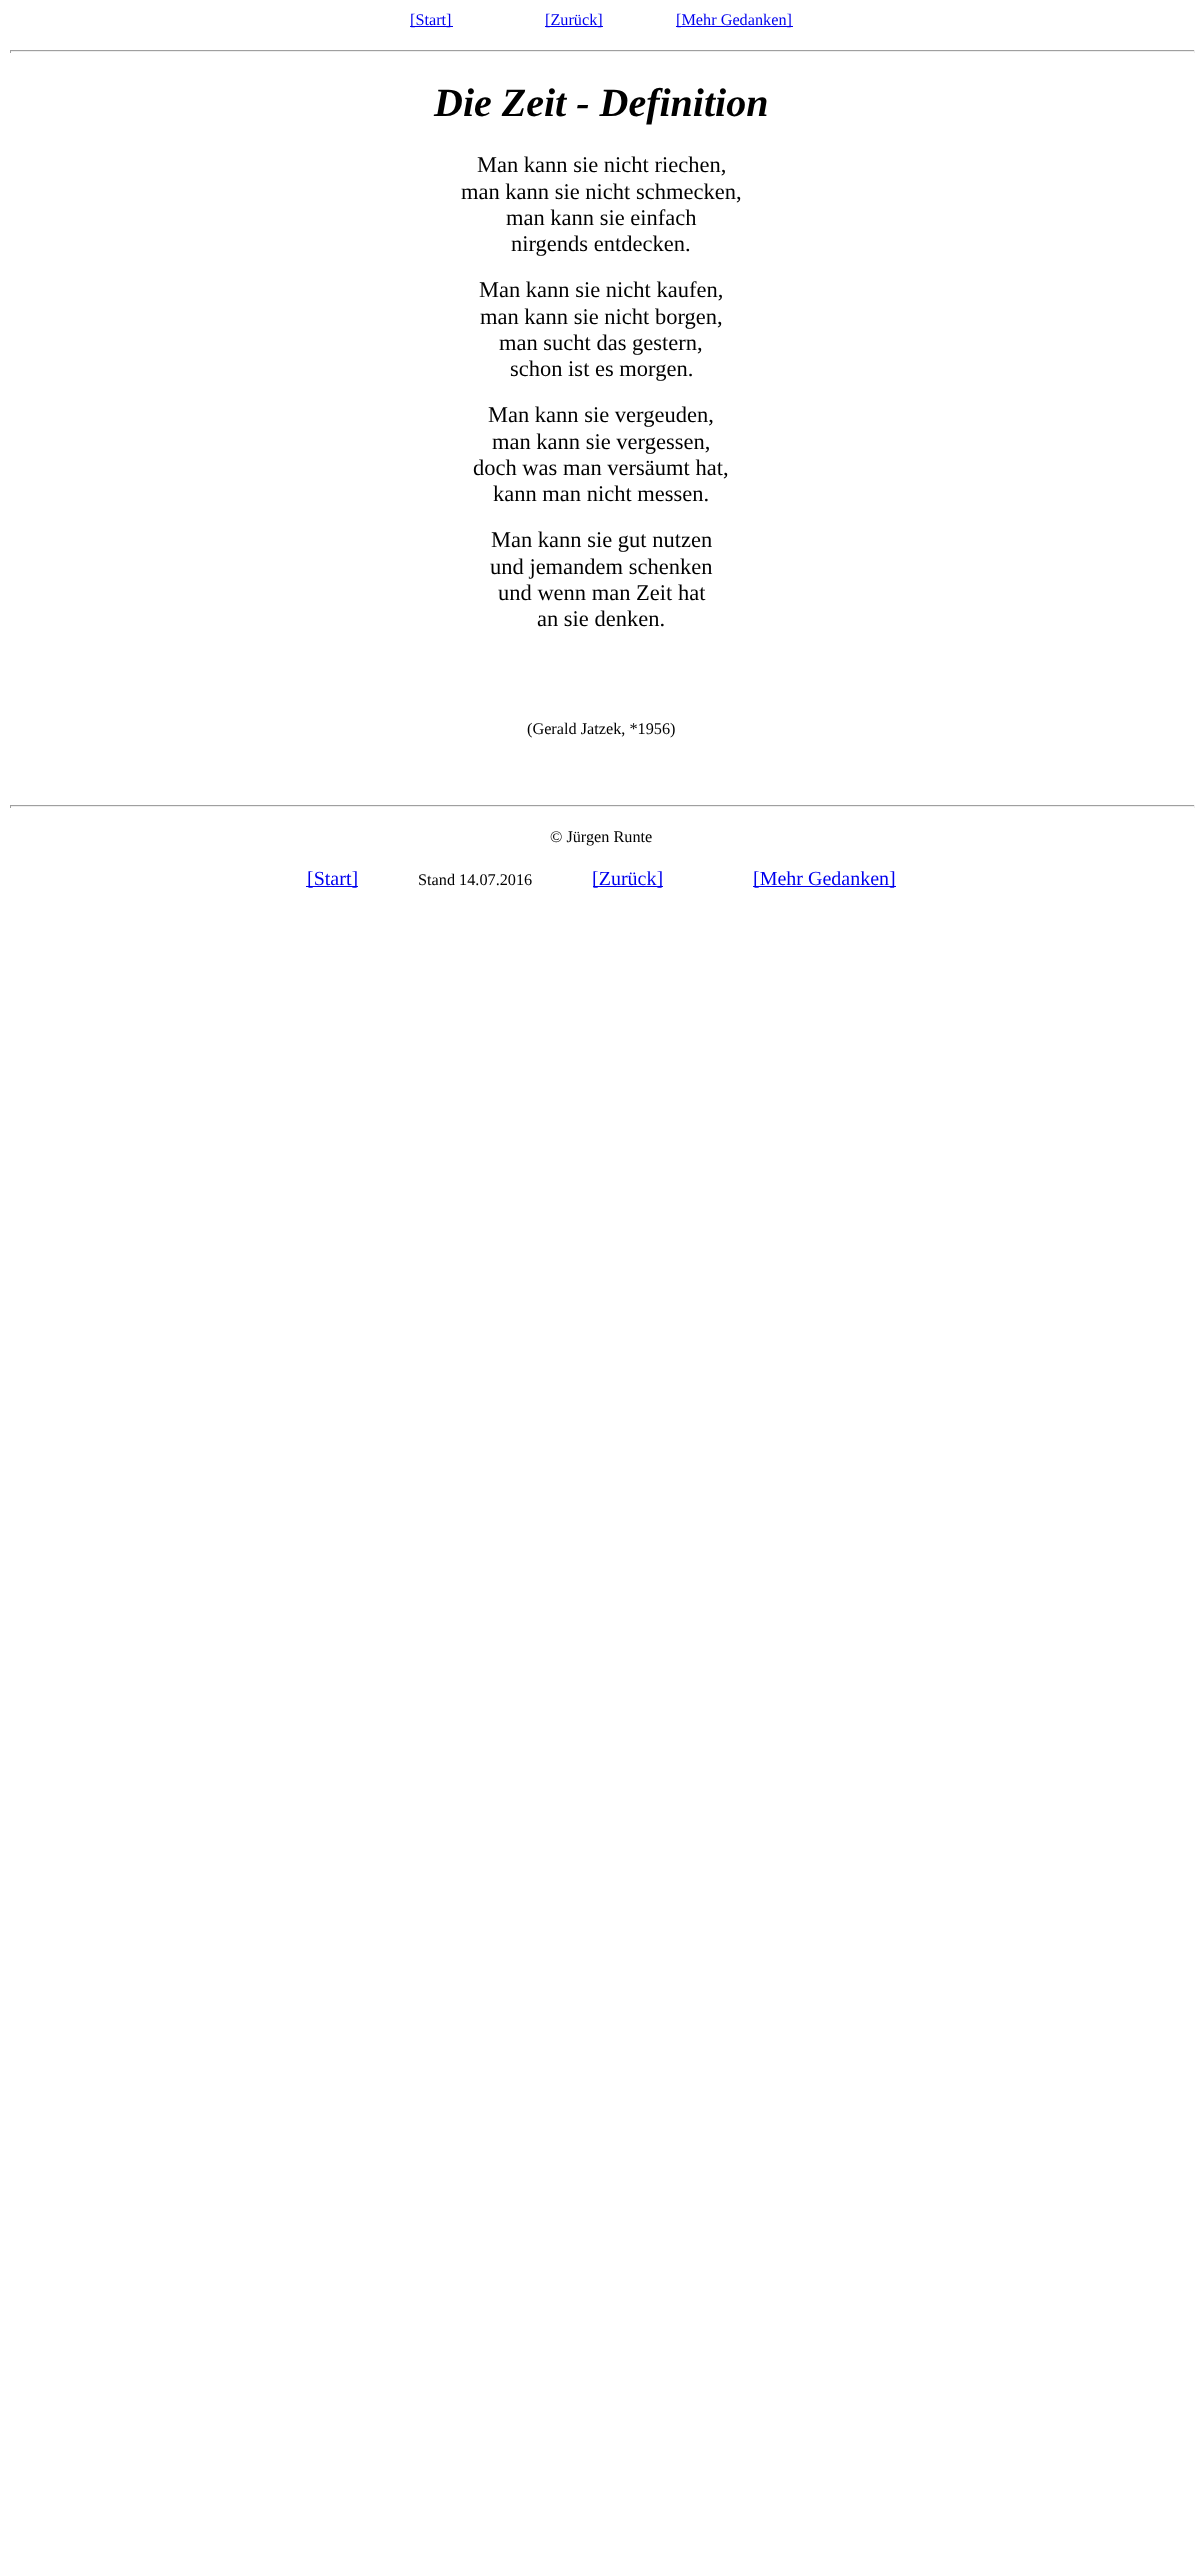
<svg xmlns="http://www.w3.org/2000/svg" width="1202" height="2570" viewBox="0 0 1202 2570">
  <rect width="100%" height="100%" fill="#ffffff"/>
  <rect x="410" y="26" width="43" height="1" fill="#0000ee"/>
  <text x="410" y="25" font-family="Liberation Serif" font-size="16.25" fill="#0000ee">[Start]</text>
  <rect x="545" y="26" width="58" height="1" fill="#0000ee"/>
  <text x="545" y="25" font-family="Liberation Serif" font-size="16.25" fill="#0000ee">[Zurück]</text>
  <rect x="676" y="26" width="117" height="1" fill="#0000ee"/>
  <text x="676" y="25" font-family="Liberation Serif" font-size="16.25" fill="#0000ee">[Mehr Gedanken]</text>
  <rect x="10" y="50" width="1185" height="1" fill="#9f9f9f"/>
  <rect x="1194" y="50" width="1" height="3" fill="#eeeeee"/>
  <rect x="10" y="51" width="1185" height="1" fill="#eeeeee"/>
  <rect x="10" y="50" width="1" height="3" fill="#9f9f9f"/>
  <text x="434" y="116" font-family="Liberation Serif" font-size="40" font-weight="bold" font-style="italic" fill="#000000">Die Zeit - Definition</text>
  <text x="477" y="172" font-family="Liberation Serif" font-size="22.5" fill="#000000">Man kann sie nicht riechen,</text>
  <text x="461" y="199" font-family="Liberation Serif" font-size="22.5" fill="#000000">man kann sie nicht schmecken,</text>
  <text x="506" y="225" font-family="Liberation Serif" font-size="22.5" fill="#000000">man kann sie einfach</text>
  <text x="511" y="251" font-family="Liberation Serif" font-size="22.5" fill="#000000">nirgends entdecken.</text>
  <text x="479" y="297" font-family="Liberation Serif" font-size="22.5" fill="#000000">Man kann sie nicht kaufen,</text>
  <text x="480" y="324" font-family="Liberation Serif" font-size="22.5" fill="#000000">man kann sie nicht borgen,</text>
  <text x="499" y="350" font-family="Liberation Serif" font-size="22.5" fill="#000000">man sucht das gestern,</text>
  <text x="510" y="376" font-family="Liberation Serif" font-size="22.5" fill="#000000">schon ist es morgen.</text>
  <text x="488" y="422" font-family="Liberation Serif" font-size="22.5" fill="#000000">Man kann sie vergeuden,</text>
  <text x="492" y="449" font-family="Liberation Serif" font-size="22.5" fill="#000000">man kann sie vergessen,</text>
  <text x="473" y="475" font-family="Liberation Serif" font-size="22.5" fill="#000000">doch was man versäumt hat,</text>
  <text x="493" y="501" font-family="Liberation Serif" font-size="22.5" fill="#000000">kann man nicht messen.</text>
  <text x="491" y="547" font-family="Liberation Serif" font-size="22.5" fill="#000000">Man kann sie gut nutzen</text>
  <text x="490" y="574" font-family="Liberation Serif" font-size="22.5" fill="#000000">und jemandem schenken</text>
  <text x="498" y="600" font-family="Liberation Serif" font-size="22.5" fill="#000000">und wenn man Zeit hat</text>
  <text x="537" y="626" font-family="Liberation Serif" font-size="22.5" fill="#000000">an sie denken.</text>
  <text x="527" y="734" font-family="Liberation Serif" font-size="16.25" fill="#000000">(Gerald Jatzek, *1956)</text>
  <rect x="10" y="805" width="1185" height="1" fill="#9f9f9f"/>
  <rect x="1194" y="805" width="1" height="3" fill="#eeeeee"/>
  <rect x="10" y="806" width="1185" height="1" fill="#eeeeee"/>
  <rect x="10" y="805" width="1" height="3" fill="#9f9f9f"/>
  <text x="550" y="842" font-family="Liberation Serif" font-size="16.25" fill="#000000">© Jürgen Runte</text>
  <rect x="306" y="886" width="52" height="1" fill="#0000ee"/>
  <text x="307" y="885" font-family="Liberation Serif" font-size="20" fill="#0000ee">[Start]</text>
  <text x="418" y="885" font-family="Liberation Serif" font-size="16.25" fill="#000000">Stand 14.07.2016</text>
  <rect x="593" y="886" width="70" height="1" fill="#0000ee"/>
  <text x="592" y="885" font-family="Liberation Serif" font-size="20" fill="#0000ee">[Zurück]</text>
  <rect x="753" y="886" width="143" height="1" fill="#0000ee"/>
  <text x="753" y="885" font-family="Liberation Serif" font-size="20" fill="#0000ee">[Mehr Gedanken]</text>
</svg>
